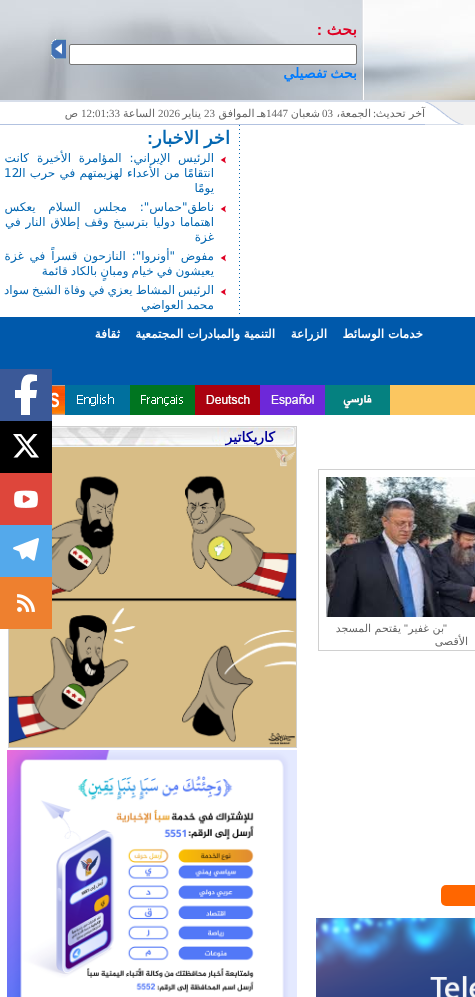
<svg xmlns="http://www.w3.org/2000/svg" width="475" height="997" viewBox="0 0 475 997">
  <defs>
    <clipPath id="clip1"><rect x="13" y="374" width="26" height="41"/></clipPath>
  </defs>
  <rect width="100%" height="100%" fill="#ffffff"/>
  <image x="364" y="0" width="111" height="100" href="img1.png"/>
  <image x="0" y="0" width="363" height="100" href="img2.png"/>
  <text x="357" y="35" font-family="DejaVu Sans" font-size="16" font-weight="bold" direction="rtl" fill="#df0023">بحث</text>
  <text x="322" y="35" font-family="Liberation Sans" font-size="16" font-weight="bold" direction="rtl" fill="#df0023">:</text>
  <rect x="69.5" y="44.5" width="287" height="20" rx="1.5" fill="#ffffff" stroke="#767676"/>
  <image x="51" y="39" width="15" height="20" href="img3.png"/>
  <text x="357" y="78" word-spacing="-1" font-family="DejaVu Sans" font-size="14" font-weight="bold" direction="rtl" fill="#007bff">بحث تفصيلي</text>
  <rect x="0" y="100" width="475" height="2" fill="#d7deea"/>
  <rect x="464" y="102" width="11" height="23" fill="#f0f0f0"/>
  <image x="425" y="102" width="39" height="23" href="img4.png"/>
  <rect x="0" y="124" width="425" height="1" fill="#b2c2e0"/>
  <text x="425" y="117" font-family="DejaVu Sans" font-size="11" direction="rtl" fill="#666666">آخر تحديث</text>
  <text x="376" y="117" font-family="Liberation Serif" font-size="11" direction="rtl" fill="#666666">:</text>
  <text x="371" y="117" font-family="DejaVu Sans" font-size="11" direction="rtl" fill="#666666">الجمعة،</text>
  <text x="322" y="117" font-family="Liberation Serif" font-size="11" fill="#666666">03</text>
  <text x="320" y="117" font-family="DejaVu Sans" font-size="11" direction="rtl" fill="#666666">شعبان</text>
  <text x="266" y="117" font-family="Liberation Serif" font-size="11" fill="#666666">1447</text>
  <text x="266" y="117" word-spacing="-1" font-family="DejaVu Sans" font-size="11" direction="rtl" fill="#666666">هـ الموافق</text>
  <text x="204" y="117" font-family="Liberation Serif" font-size="11" fill="#666666">23</text>
  <text x="201" y="117" font-family="DejaVu Sans" font-size="11" direction="rtl" fill="#666666">يناير</text>
  <text x="158" y="117" font-family="Liberation Serif" font-size="11" fill="#666666">2026</text>
  <text x="155" y="117" font-family="DejaVu Sans" font-size="11" direction="rtl" fill="#666666">الساعة</text>
  <text x="81" y="117" font-family="Liberation Serif" font-size="11" fill="#666666">12:01:33</text>
  <text x="78" y="117" font-family="DejaVu Sans" font-size="11" direction="rtl" fill="#666666">ص</text>
  <image x="239" y="125" width="1" height="189" href="img5.png"/>
  <text x="230" y="144" word-spacing="-0.75" font-family="DejaVu Sans" font-size="18" font-weight="bold" direction="rtl" fill="#0568b2">اخر الاخبار</text>
  <text x="153" y="144" font-family="Liberation Sans" font-size="18" font-weight="bold" direction="rtl" fill="#0568b2">:</text>
  <image x="220" y="156" width="6" height="8" href="img6.png"/>
  <text x="214" y="162" word-spacing="4" font-family="DejaVu Sans" font-size="12" direction="rtl" fill="#0568b2">الرئيس الإيراني: المؤامرة الأخيرة كانت</text>
  <text x="4" y="177" font-family="DejaVu Sans" font-size="12" fill="#0568b2">12</text>
  <text x="214" y="177" word-spacing="0.5" font-family="DejaVu Sans" font-size="12" direction="rtl" fill="#0568b2">انتقامًا من الأعداء لهزيمتهم في حرب الـ</text>
  <text x="214" y="192" font-family="DejaVu Sans" font-size="12" direction="rtl" fill="#0568b2">يومًا</text>
  <image x="220" y="205" width="6" height="8" href="img6.png"/>
  <text x="214" y="211" word-spacing="9" font-family="DejaVu Sans" font-size="12" direction="rtl" fill="#0568b2">ناطق"حماس": مجلس السلام يعكس</text>
  <text x="214" y="226" word-spacing="1" font-family="DejaVu Sans" font-size="12" direction="rtl" fill="#0568b2">اهتماما دوليا بترسيخ وقف إطلاق النار في</text>
  <text x="214" y="241" font-family="DejaVu Sans" font-size="12" direction="rtl" fill="#0568b2">غزة</text>
  <image x="220" y="254" width="6" height="8" href="img6.png"/>
  <text x="214" y="260" word-spacing="2" font-family="DejaVu Sans" font-size="12" direction="rtl" fill="#0568b2">مفوض "أونروا": النازحون قسراً في غزة</text>
  <text x="214" y="275" word-spacing="-0.75" font-family="DejaVu Sans" font-size="12" direction="rtl" fill="#0568b2">يعيشون في خيام ومبانٍ بالكاد قائمة</text>
  <image x="220" y="288" width="6" height="8" href="img6.png"/>
  <text x="214" y="294" word-spacing="-0.75" font-family="DejaVu Sans" font-size="12" direction="rtl" fill="#0568b2">الرئيس المشاط يعزي في وفاة الشيخ سواد</text>
  <text x="214" y="309" word-spacing="-0.75" font-family="DejaVu Sans" font-size="12" direction="rtl" fill="#0568b2">محمد العواضي</text>
  <rect x="0" y="317" width="475" height="68" fill="#0059ab"/>
  <text x="423" y="338" font-family="DejaVu Sans" font-size="12" font-weight="bold" direction="rtl" fill="#ffffff">خدمات الوسائط</text>
  <text x="327" y="338" font-family="DejaVu Sans" font-size="12" font-weight="bold" direction="rtl" fill="#ffffff">الزراعة</text>
  <text x="275" y="338" font-family="DejaVu Sans" font-size="12" font-weight="bold" direction="rtl" fill="#ffffff">التنمية والمبادرات المجتمعية</text>
  <text x="120" y="338" font-family="DejaVu Sans" font-size="12" font-weight="bold" direction="rtl" fill="#ffffff">ثقافة</text>
  <rect x="325" y="385" width="150" height="30" fill="#fbc660"/>
  <image x="325" y="385" width="65" height="30" href="img7.png"/>
  <image x="260" y="385" width="65" height="30" href="img8.png"/>
  <image x="195" y="385" width="65" height="30" href="img9.png"/>
  <image x="130" y="385" width="65" height="30" href="img10.png"/>
  <image x="65" y="385" width="65" height="30" href="img11.png"/>
  <image x="52" y="385" width="13" height="30" href="img12.png"/>
  <rect x="52" y="446" width="244" height="1" fill="#f1f7fa"/>
  <rect x="8.5" y="426.5" width="288" height="321" fill="none" stroke="#d0d0d0"/>
  <image x="52" y="427" width="244" height="19" href="img13.png"/>
  <text x="275" y="442" font-family="DejaVu Sans" font-size="14" font-weight="bold" direction="rtl" fill="#000099">كاريكاتير</text>
  <image x="9" y="447" width="287" height="300" href="img14.png"/>
  <image x="7" y="750" width="290" height="247" href="img15.png"/>
  <rect x="318.5" y="469.5" width="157" height="181" fill="none" stroke="#d0d0d0"/>
  <image x="326" y="477" width="149" height="140" href="img16.png"/>
  <text x="447" y="632" font-family="Liberation Sans" font-size="11" direction="rtl" fill="#666666">"</text>
  <text x="408" y="632" font-family="Liberation Sans" font-size="11" direction="rtl" fill="#666666">"</text>
  <text x="444" y="632" font-family="DejaVu Sans" font-size="11" direction="rtl" fill="#666666">بن غفير</text>
  <text x="401" y="632" font-family="DejaVu Sans" font-size="11" direction="rtl" fill="#666666">يقتحم المسجد</text>
  <text x="468" y="645" font-family="DejaVu Sans" font-size="11" direction="rtl" fill="#666666">الأقصى</text>
  <rect x="441" y="885" width="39" height="21" rx="5" fill="#ff6600"/>
  <image x="316" y="918" width="159" height="79" href="img17.png"/>
  <rect x="0" y="369" width="52" height="52" fill="#3b5998"/>
  <g clip-path="url(#clip1)">
    <path d="M36 398L37 390H30C30 383 29 381 37 381V375C23 372 21 378 21 390H15V398H21V416H30V398Z" fill="#ffffff"/>
  </g>
  <rect x="0" y="421" width="52" height="52" fill="#000000"/>
  <image x="13" y="434" width="26" height="24" href="img18.png"/>
  <rect x="0" y="473" width="52" height="52" fill="#de463b"/>
  <image x="14" y="490" width="24" height="18" href="img19.png"/>
  <rect x="0" y="525" width="52" height="52" fill="#54a9eb"/>
  <image x="13" y="538" width="26" height="23" href="img20.png"/>
  <rect x="0" y="577" width="52" height="52" fill="#ee802f"/>
  <image x="17" y="594" width="18" height="18" href="img21.png"/>
</svg>
